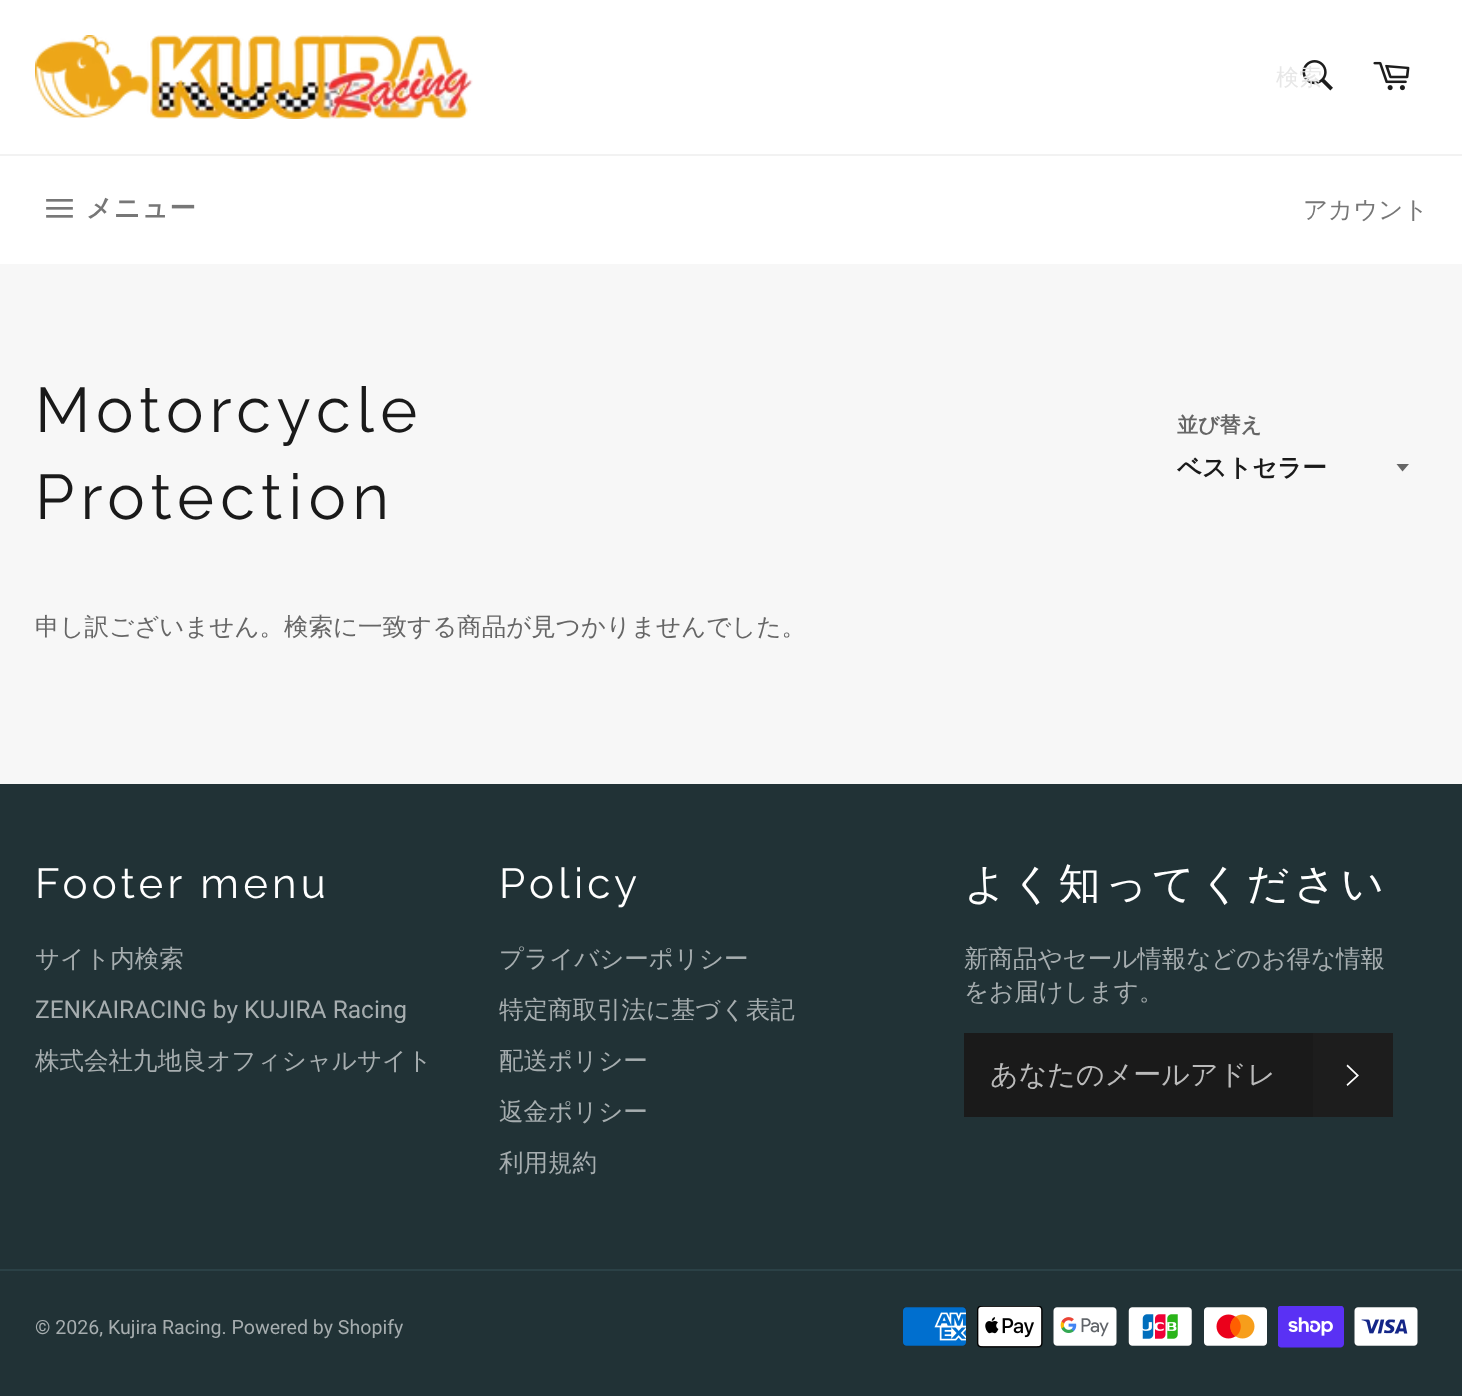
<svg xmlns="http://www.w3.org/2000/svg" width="1462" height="1396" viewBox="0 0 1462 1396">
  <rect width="100%" height="100%" fill="#213236"/>
  <rect x="0" y="264" width="1462" height="520" fill="#f7f7f7"/>
  <rect x="0" y="0" width="1462" height="154" fill="#ffffff"/>
  <image x="35" y="35" width="438" height="84" href="img1.png"/>
  <image x="1302" y="60" width="31" height="31" href="img2.png"/>
  <text x="1276" y="85" font-family="WenQuanYi Zen Hei" font-size="23" font-weight="500" fill="#e7e7e7">検索</text>
  <image x="1373" y="61" width="37" height="30" href="img3.png"/>
  <rect x="0" y="156" width="1462" height="108" fill="#ffffff"/>
  <rect x="0" y="154" width="1462" height="2" fill="#f2f2f2"/>
  <image x="46" y="199" width="27" height="19" href="img4.png"/>
  <text x="86" y="217" font-family="WenQuanYi Zen Hei" font-size="26.25" font-weight="bold" letter-spacing="1" fill="#777777">メニュー</text>
  <text x="1303" y="218" font-family="WenQuanYi Zen Hei" font-size="24.5" font-weight="500" fill="#777777">アカウント</text>
  <text x="35" y="432" font-family="Raleway" font-size="63" letter-spacing="6.25" fill="#1a1a1a">Motorcycle</text>
  <text x="35" y="519" font-family="Raleway" font-size="63" letter-spacing="6.25" fill="#1a1a1a">Protection</text>
  <text x="1177" y="432" font-family="WenQuanYi Zen Hei" font-size="21" font-weight="bold" fill="#666666">並び替え</text>
  <path d="M1396.5 464L1402.5 471.5L1409 464Z" fill="#666666"/>
  <text x="1177" y="476" font-family="WenQuanYi Zen Hei" font-size="24.5" font-weight="bold" fill="#1a1a1a">ベストセラー</text>
  <text x="35" y="635" font-family="WenQuanYi Zen Hei" font-size="24.5" font-weight="500" fill="#666666">申し訳ございません。検索に一致する商品が見つかりませんでした。</text>
  <text x="35" y="898" font-family="Raleway" font-size="42" letter-spacing="4.25" fill="#ffffff">Footer menu</text>
  <text x="35" y="967" font-family="WenQuanYi Zen Hei" font-size="24.5" font-weight="500" fill="#a6adaf">サイト内検索</text>
  <text x="35" y="1018" font-family="Roboto" font-size="24.5" fill="#a6adaf">ZENKAIRACING by KUJIRA Racing</text>
  <text x="35" y="1069" font-family="WenQuanYi Zen Hei" font-size="24.5" font-weight="500" fill="#a6adaf">株式会社九地良オフィシャルサイト</text>
  <text x="499" y="898" font-family="Raleway" font-size="42" letter-spacing="4.25" fill="#ffffff">Policy</text>
  <text x="499" y="967" font-family="WenQuanYi Zen Hei" font-size="24.5" font-weight="500" fill="#a6adaf">プライバシーポリシー</text>
  <text x="499" y="1018" font-family="WenQuanYi Zen Hei" font-size="24.5" font-weight="500" fill="#a6adaf">特定商取引法に基づく表記</text>
  <text x="499" y="1069" font-family="WenQuanYi Zen Hei" font-size="24.5" font-weight="500" fill="#a6adaf">配送ポリシー</text>
  <text x="499" y="1120" font-family="WenQuanYi Zen Hei" font-size="24.5" font-weight="500" fill="#a6adaf">返金ポリシー</text>
  <text x="499" y="1171" font-family="WenQuanYi Zen Hei" font-size="24.5" font-weight="500" fill="#a6adaf">利用規約</text>
  <text x="964" y="898" font-family="WenQuanYi Zen Hei" font-size="42" font-weight="500" letter-spacing="4.25" fill="#ffffff">よく知ってください</text>
  <text x="964" y="967" font-family="WenQuanYi Zen Hei" font-size="24.5" font-weight="500" fill="#a6adaf">新商品やセール情報などのお得な情報</text>
  <text x="964" y="1000" font-family="WenQuanYi Zen Hei" font-size="24.5" font-weight="500" fill="#a6adaf">をお届けします。</text>
  <rect x="964" y="1033" width="349" height="84" fill="#1a1a1a"/>
  <text x="990" y="1084" font-family="WenQuanYi Zen Hei" font-size="28" font-weight="500" fill="#bababa">あなたのメールアドレ</text>
  <rect x="1313" y="1033" width="80" height="84" fill="#1d1d1d"/>
  <path d="M1346.5 1066L1347.5 1064.5L1359 1075.5L1347.5 1086L1346.5 1084.5L1356.5 1075.5Z" fill="#ffffff"/>
  <rect x="0" y="1269" width="1462" height="2" fill="#2b4146"/>
  <text x="35" y="1334" font-family="Roboto" font-size="19.6" fill="#a6adaf">© 2026, Kujira Racing. Powered by Shopify</text>
  <image x="903" y="1307" width="63" height="39" href="img5.png"/>
  <image x="977" y="1306" width="66" height="42" href="img6.png"/>
  <image x="1053" y="1307" width="64" height="39" href="img7.png"/>
  <image x="1128" y="1307" width="64" height="39" href="img8.png"/>
  <image x="1204" y="1307" width="63" height="39" href="img9.png"/>
  <image x="1278" y="1306" width="66" height="42" href="img10.png"/>
  <image x="1354" y="1307" width="64" height="39" href="img11.png"/>
</svg>
